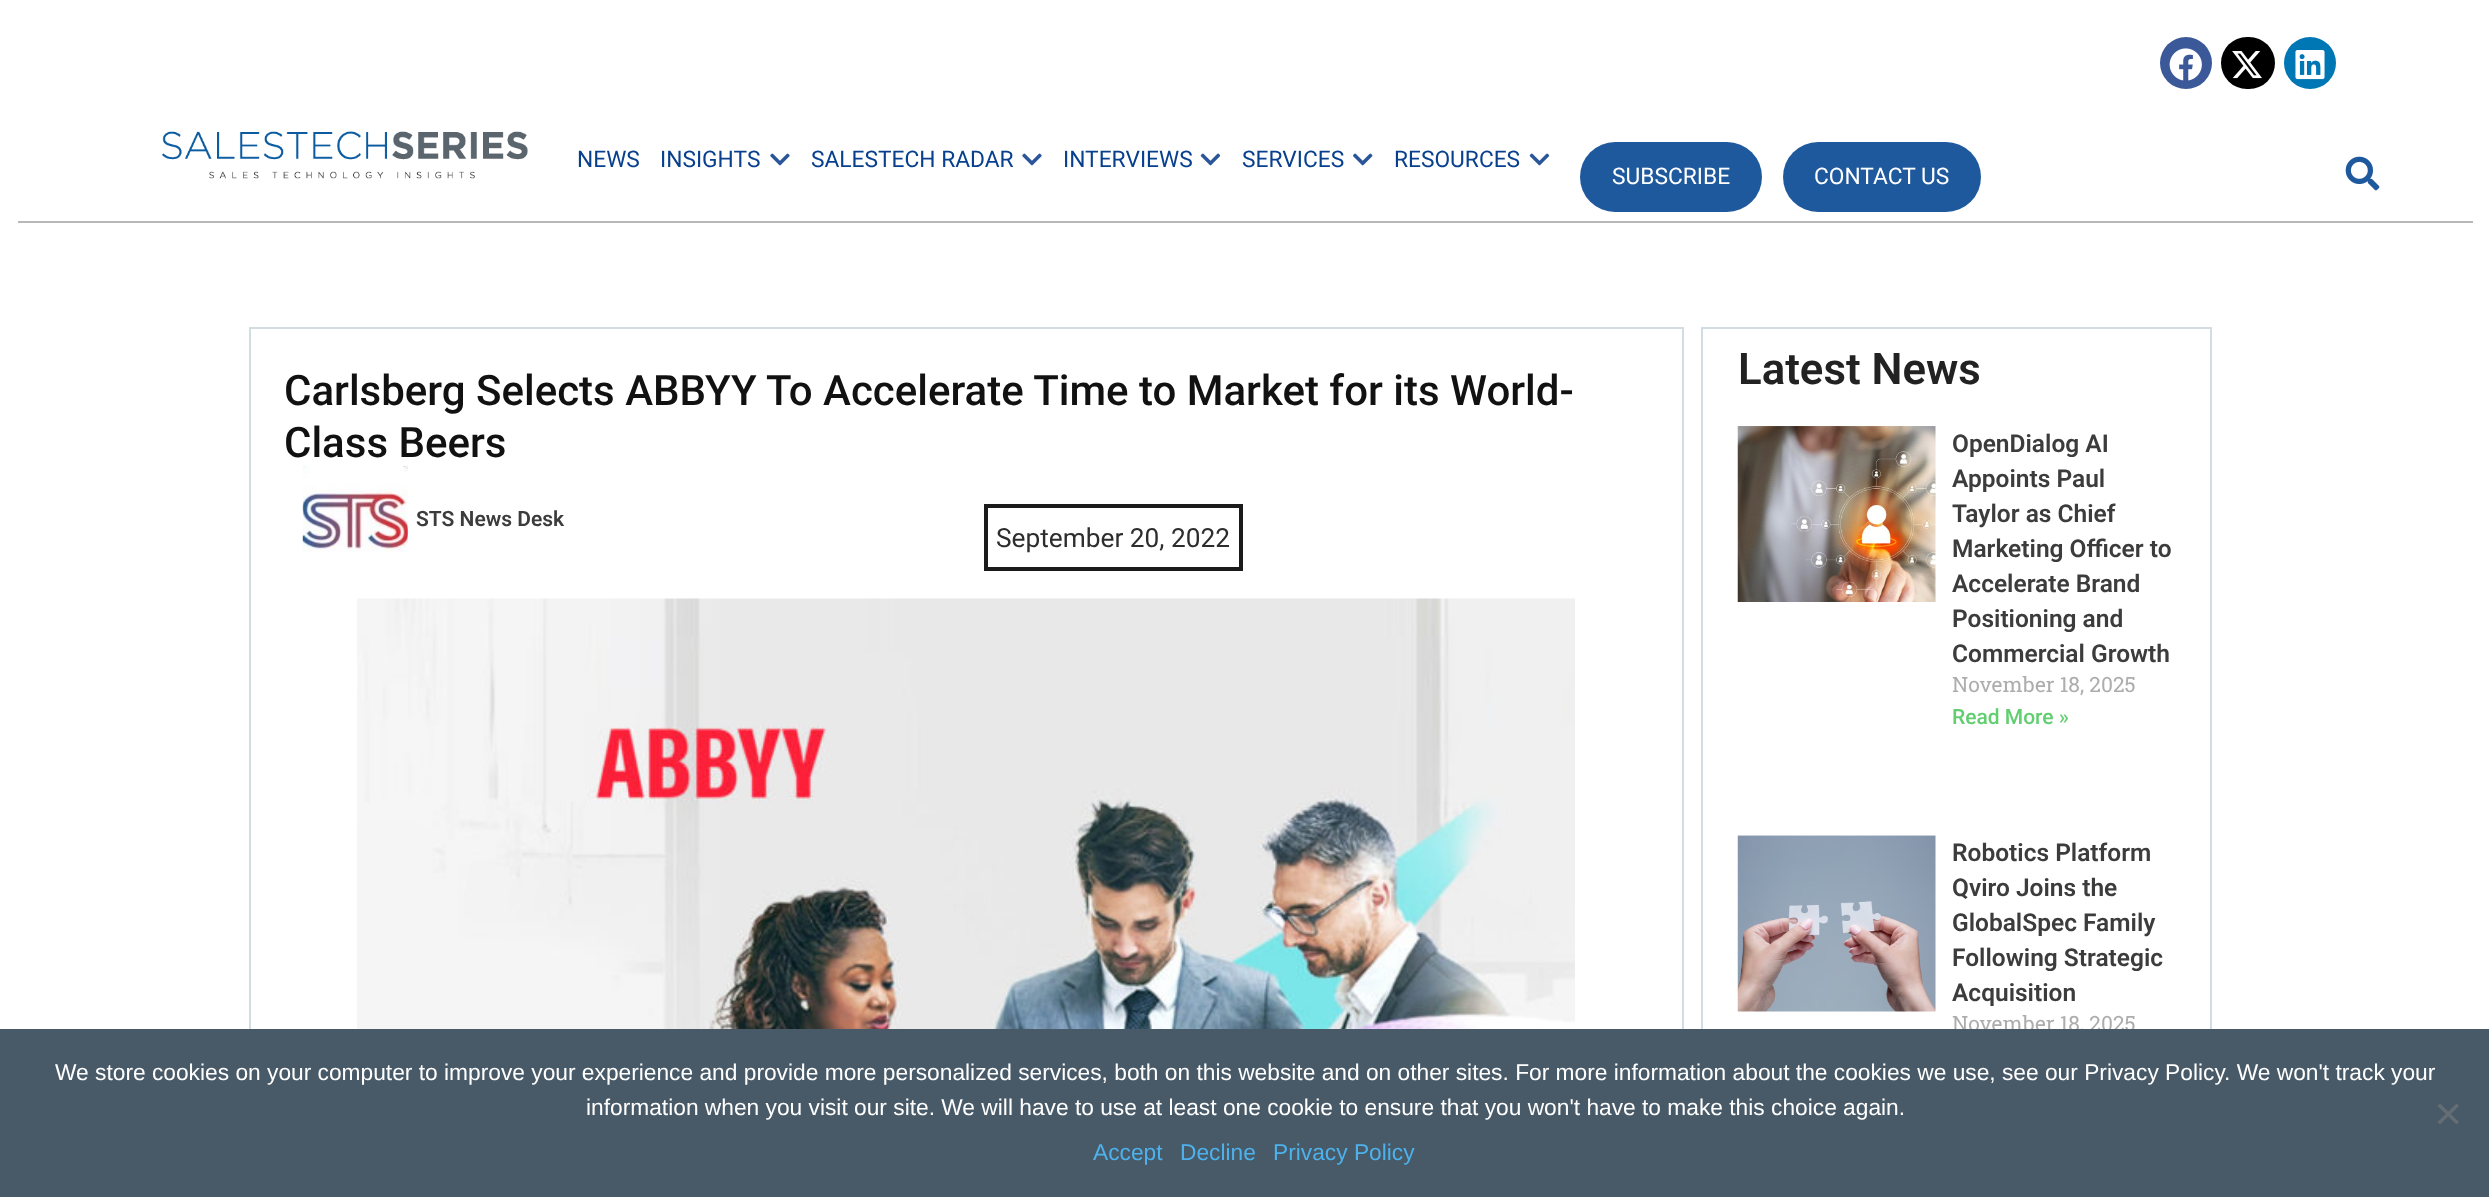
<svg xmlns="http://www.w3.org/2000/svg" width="2489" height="1197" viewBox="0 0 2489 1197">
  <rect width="100%" height="100%" fill="#ffffff"/>
  <circle cx="2186" cy="63" r="26" fill="#3b5998"/>
  <image x="2169" y="48" width="33" height="33" href="img1.png"/>
  <rect x="2221" y="37" width="54" height="52" rx="26" fill="#000000"/>
  <image x="2232" y="51" width="30" height="28" href="img2.png"/>
  <circle cx="2310" cy="63" r="26" fill="#0077b5"/>
  <image x="2295" y="50" width="30" height="30" href="img3.png"/>
  <image x="162" y="131" width="366" height="48" href="img4.png"/>
  <text x="577" y="167" font-family="Roboto" font-size="22.75" fill="#08408e">NEWS</text>
  <text x="660" y="167" font-family="Roboto" font-size="22.75" fill="#08408e">INSIGHTS</text>
  <image x="770" y="153" width="20" height="13" href="img5.png"/>
  <text x="811" y="167" font-family="Roboto" font-size="22.75" fill="#08408e">SALESTECH RADAR</text>
  <image x="1022" y="153" width="20" height="13" href="img5.png"/>
  <text x="1063" y="167" font-family="Roboto" font-size="22.75" fill="#08408e">INTERVIEWS</text>
  <image x="1200" y="153" width="21" height="13" href="img6.png"/>
  <text x="1242" y="167" font-family="Roboto" font-size="22.75" fill="#08408e">SERVICES</text>
  <image x="1353" y="153" width="20" height="13" href="img7.png"/>
  <text x="1394" y="167" font-family="Roboto" font-size="22.75" fill="#08408e">RESOURCES</text>
  <image x="1529" y="153" width="21" height="13" href="img6.png"/>
  <rect x="1580" y="142" width="182" height="70" rx="35" fill="#1f599d"/>
  <text x="1612" y="184" font-family="Roboto" font-size="22.75" fill="#ffffff">SUBSCRIBE</text>
  <rect x="1783" y="142" width="198" height="70" rx="35" fill="#1f599d"/>
  <text x="1814" y="184" font-family="Roboto" font-size="22.75" fill="#ffffff">CONTACT US</text>
  <image x="2345" y="156" width="35" height="35" href="img8.png"/>
  <rect x="18" y="221" width="2455" height="2" fill="#b8b8b8"/>
  <rect x="250" y="328" width="1433" height="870" fill="none" stroke="#d2dce3" stroke-width="2"/>
  <text x="284" y="405" font-family="Roboto" font-size="42" font-weight="500" fill="#111111">Carlsberg Selects ABBYY To Accelerate Time to Market for its World-</text>
  <text x="284" y="457" font-family="Roboto" font-size="42" font-weight="500" fill="#111111">Class Beers</text>
  <image x="302" y="465" width="106" height="87" href="img9.png"/>
  <text x="416" y="526" font-family="Roboto" font-size="21" font-weight="600" fill="#3c3c3c">STS News Desk</text>
  <rect x="986" y="506" width="255" height="63" fill="none" stroke="#1b1b1b" stroke-width="4"/>
  <text x="996" y="547" font-family="Roboto" font-size="26.25" fill="#2d2d2d">September 20, 2022</text>
  <image x="357" y="598" width="1218" height="431" href="img10.png"/>
  <rect x="1702" y="328" width="509" height="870" fill="none" stroke="#d2dce3" stroke-width="2"/>
  <text x="1738" y="384" font-family="Roboto" font-size="43.75" font-weight="600" fill="#222222">Latest News</text>
  <image x="1737" y="426" width="199" height="176" href="img11.png"/>
  <text x="1952" y="452" font-family="Roboto" font-size="24.5" font-weight="600" fill="#3c3c3c">OpenDialog AI</text>
  <text x="1952" y="487" font-family="Roboto" font-size="24.5" font-weight="600" fill="#3c3c3c">Appoints Paul</text>
  <text x="1952" y="522" font-family="Roboto" font-size="24.5" font-weight="600" fill="#3c3c3c">Taylor as Chief</text>
  <text x="1952" y="557" font-family="Roboto" font-size="24.5" font-weight="600" fill="#3c3c3c">Marketing Officer to</text>
  <text x="1952" y="592" font-family="Roboto" font-size="24.5" font-weight="600" fill="#3c3c3c">Accelerate Brand</text>
  <text x="1952" y="627" font-family="Roboto" font-size="24.5" font-weight="600" fill="#3c3c3c">Positioning and</text>
  <text x="1952" y="662" font-family="Roboto" font-size="24.5" font-weight="600" fill="#3c3c3c">Commercial Growth</text>
  <text x="1952" y="692" font-family="Roboto Slab" font-size="21" fill="#adadad">November 18, 2025</text>
  <text x="1952" y="724" font-family="Roboto" font-size="21" font-weight="500" fill="#61ce70">Read More »</text>
  <image x="1737" y="835" width="199" height="177" href="img12.png"/>
  <text x="1952" y="861" font-family="Roboto" font-size="24.5" font-weight="600" fill="#3c3c3c">Robotics Platform</text>
  <text x="1952" y="896" font-family="Roboto" font-size="24.5" font-weight="600" fill="#3c3c3c">Qviro Joins the</text>
  <text x="1952" y="931" font-family="Roboto" font-size="24.5" font-weight="600" fill="#3c3c3c">GlobalSpec Family</text>
  <text x="1952" y="966" font-family="Roboto" font-size="24.5" font-weight="600" fill="#3c3c3c">Following Strategic</text>
  <text x="1952" y="1001" font-family="Roboto" font-size="24.5" font-weight="600" fill="#3c3c3c">Acquisition</text>
  <text x="1952" y="1031" font-family="Roboto Slab" font-size="21" fill="#adadad">November 18, 2025</text>
  <rect x="0" y="1029" width="2489" height="168" fill="#485967"/>
  <text x="55" y="1080" font-family="Liberation Sans" font-size="22.75" fill="#ffffff">We store cookies on your computer to improve your experience and provide more personalized services, both on this website and on other sites. For more information about the cookies we use, see our Privacy Policy. We won't track your</text>
  <text x="586" y="1115" font-family="Liberation Sans" font-size="22.75" fill="#ffffff">information when you visit our site. We will have to use at least one cookie to ensure that you won't have to make this choice again.</text>
  <path d="M2456.5 1103.5L2459 1106L2440 1124.5L2437.5 1122Z" fill="#646d74"/>
  <path d="M2437.5 1106L2440 1103.5L2459 1122L2456.5 1124.5Z" fill="#646d74"/>
  <text x="1093" y="1160" font-family="Liberation Sans" font-size="22.75" fill="#4db2ec">Accept</text>
  <text x="1180" y="1160" font-family="Liberation Sans" font-size="22.75" fill="#4db2ec">Decline</text>
  <text x="1273" y="1160" font-family="Liberation Sans" font-size="22.75" fill="#4db2ec">Privacy Policy</text>
</svg>
